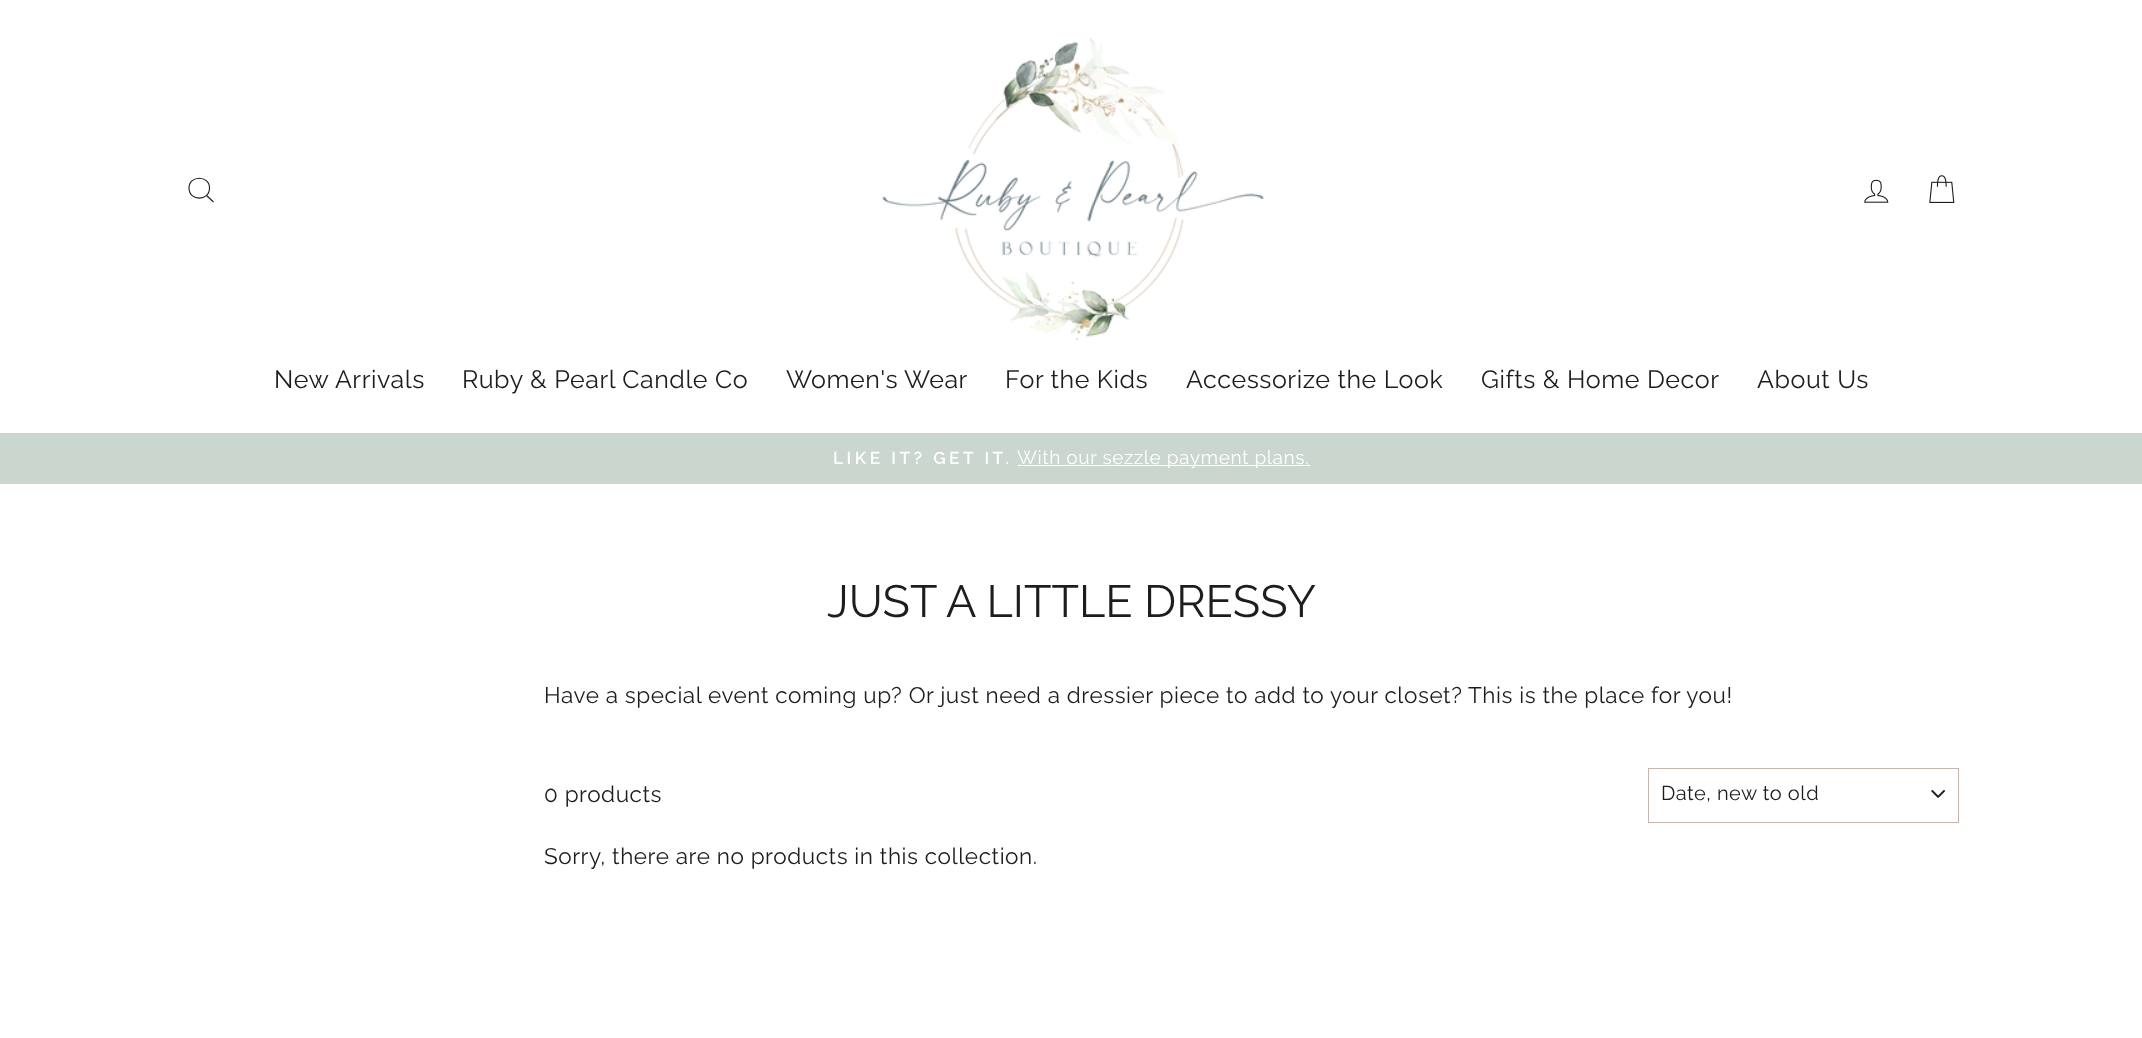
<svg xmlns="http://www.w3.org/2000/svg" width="2142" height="1038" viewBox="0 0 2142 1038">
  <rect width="100%" height="100%" fill="#ffffff"/>
  <path d="M209.5 188C209.5 201.5 189 201.5 189 188C189 175 209.5 175 209.5 188ZM213.5 202L206.5 195.5" fill="none" stroke="#1c1d1d" stroke-width="1.1"/>
  <image x="882" y="37" width="382" height="303" href="img1.png"/>
  <image x="1864" y="179" width="25" height="24" href="img2.png"/>
  <image x="1929" y="175" width="26" height="28" href="img3.png"/>
  <text x="274" y="388" font-family="Raleway" font-size="25" letter-spacing="0.56" fill="#1c1d1d">New Arrivals</text>
  <text x="462" y="388" font-family="Raleway" font-size="25" letter-spacing="0.56" fill="#1c1d1d">Ruby &amp; Pearl Candle Co</text>
  <text x="786" y="388" font-family="Raleway" font-size="25" letter-spacing="0.56" fill="#1c1d1d">Women's Wear</text>
  <text x="1005" y="388" font-family="Raleway" font-size="25" letter-spacing="0.56" fill="#1c1d1d">For the Kids</text>
  <text x="1186" y="388" font-family="Raleway" font-size="25" letter-spacing="0.56" fill="#1c1d1d">Accessorize the Look</text>
  <text x="1481" y="388" font-family="Raleway" font-size="25" letter-spacing="0.56" fill="#1c1d1d">Gifts &amp; Home Decor</text>
  <text x="1757" y="388" font-family="Raleway" font-size="25" letter-spacing="0.56" fill="#1c1d1d">About Us</text>
  <rect x="0" y="433" width="2142" height="51" fill="#cad6ce"/>
  <text x="833" y="464" font-family="Raleway" font-size="17.25" font-weight="600" letter-spacing="3.5" fill="#ffffff">LIKE IT? GET IT.</text>
  <rect x="1018" y="465" width="292" height="1" fill="#ffffff"/>
  <text x="1017" y="464" font-family="Raleway" font-size="19.1" letter-spacing="0.56" fill="#ffffff">With our sezzle payment plans.</text>
  <text x="827" y="617" font-family="Raleway" font-size="45" fill="#1c1d1d">JUST A LITTLE DRESSY</text>
  <text x="544" y="703" font-family="Raleway" font-size="22.5" letter-spacing="0.56" fill="#1c1d1d">Have a special event coming up? Or just need a dressier piece to add to your closet? This is the place for you!</text>
  <text x="544" y="802" font-family="Raleway" font-size="22.5" letter-spacing="0.56" fill="#1c1d1d">0 products</text>
  <image x="1931" y="790" width="14" height="8" href="img4.png"/>
  <rect x="1648.5" y="768.5" width="310" height="54" fill="none" stroke="#c7b4ad"/>
  <text x="1661" y="800" font-family="Raleway" font-size="20" letter-spacing="0.5" fill="#1c1d1d">Date, new to old</text>
  <text x="544" y="864" font-family="Raleway" font-size="22.5" letter-spacing="0.56" fill="#1c1d1d">Sorry, there are no products in this collection.</text>
</svg>
